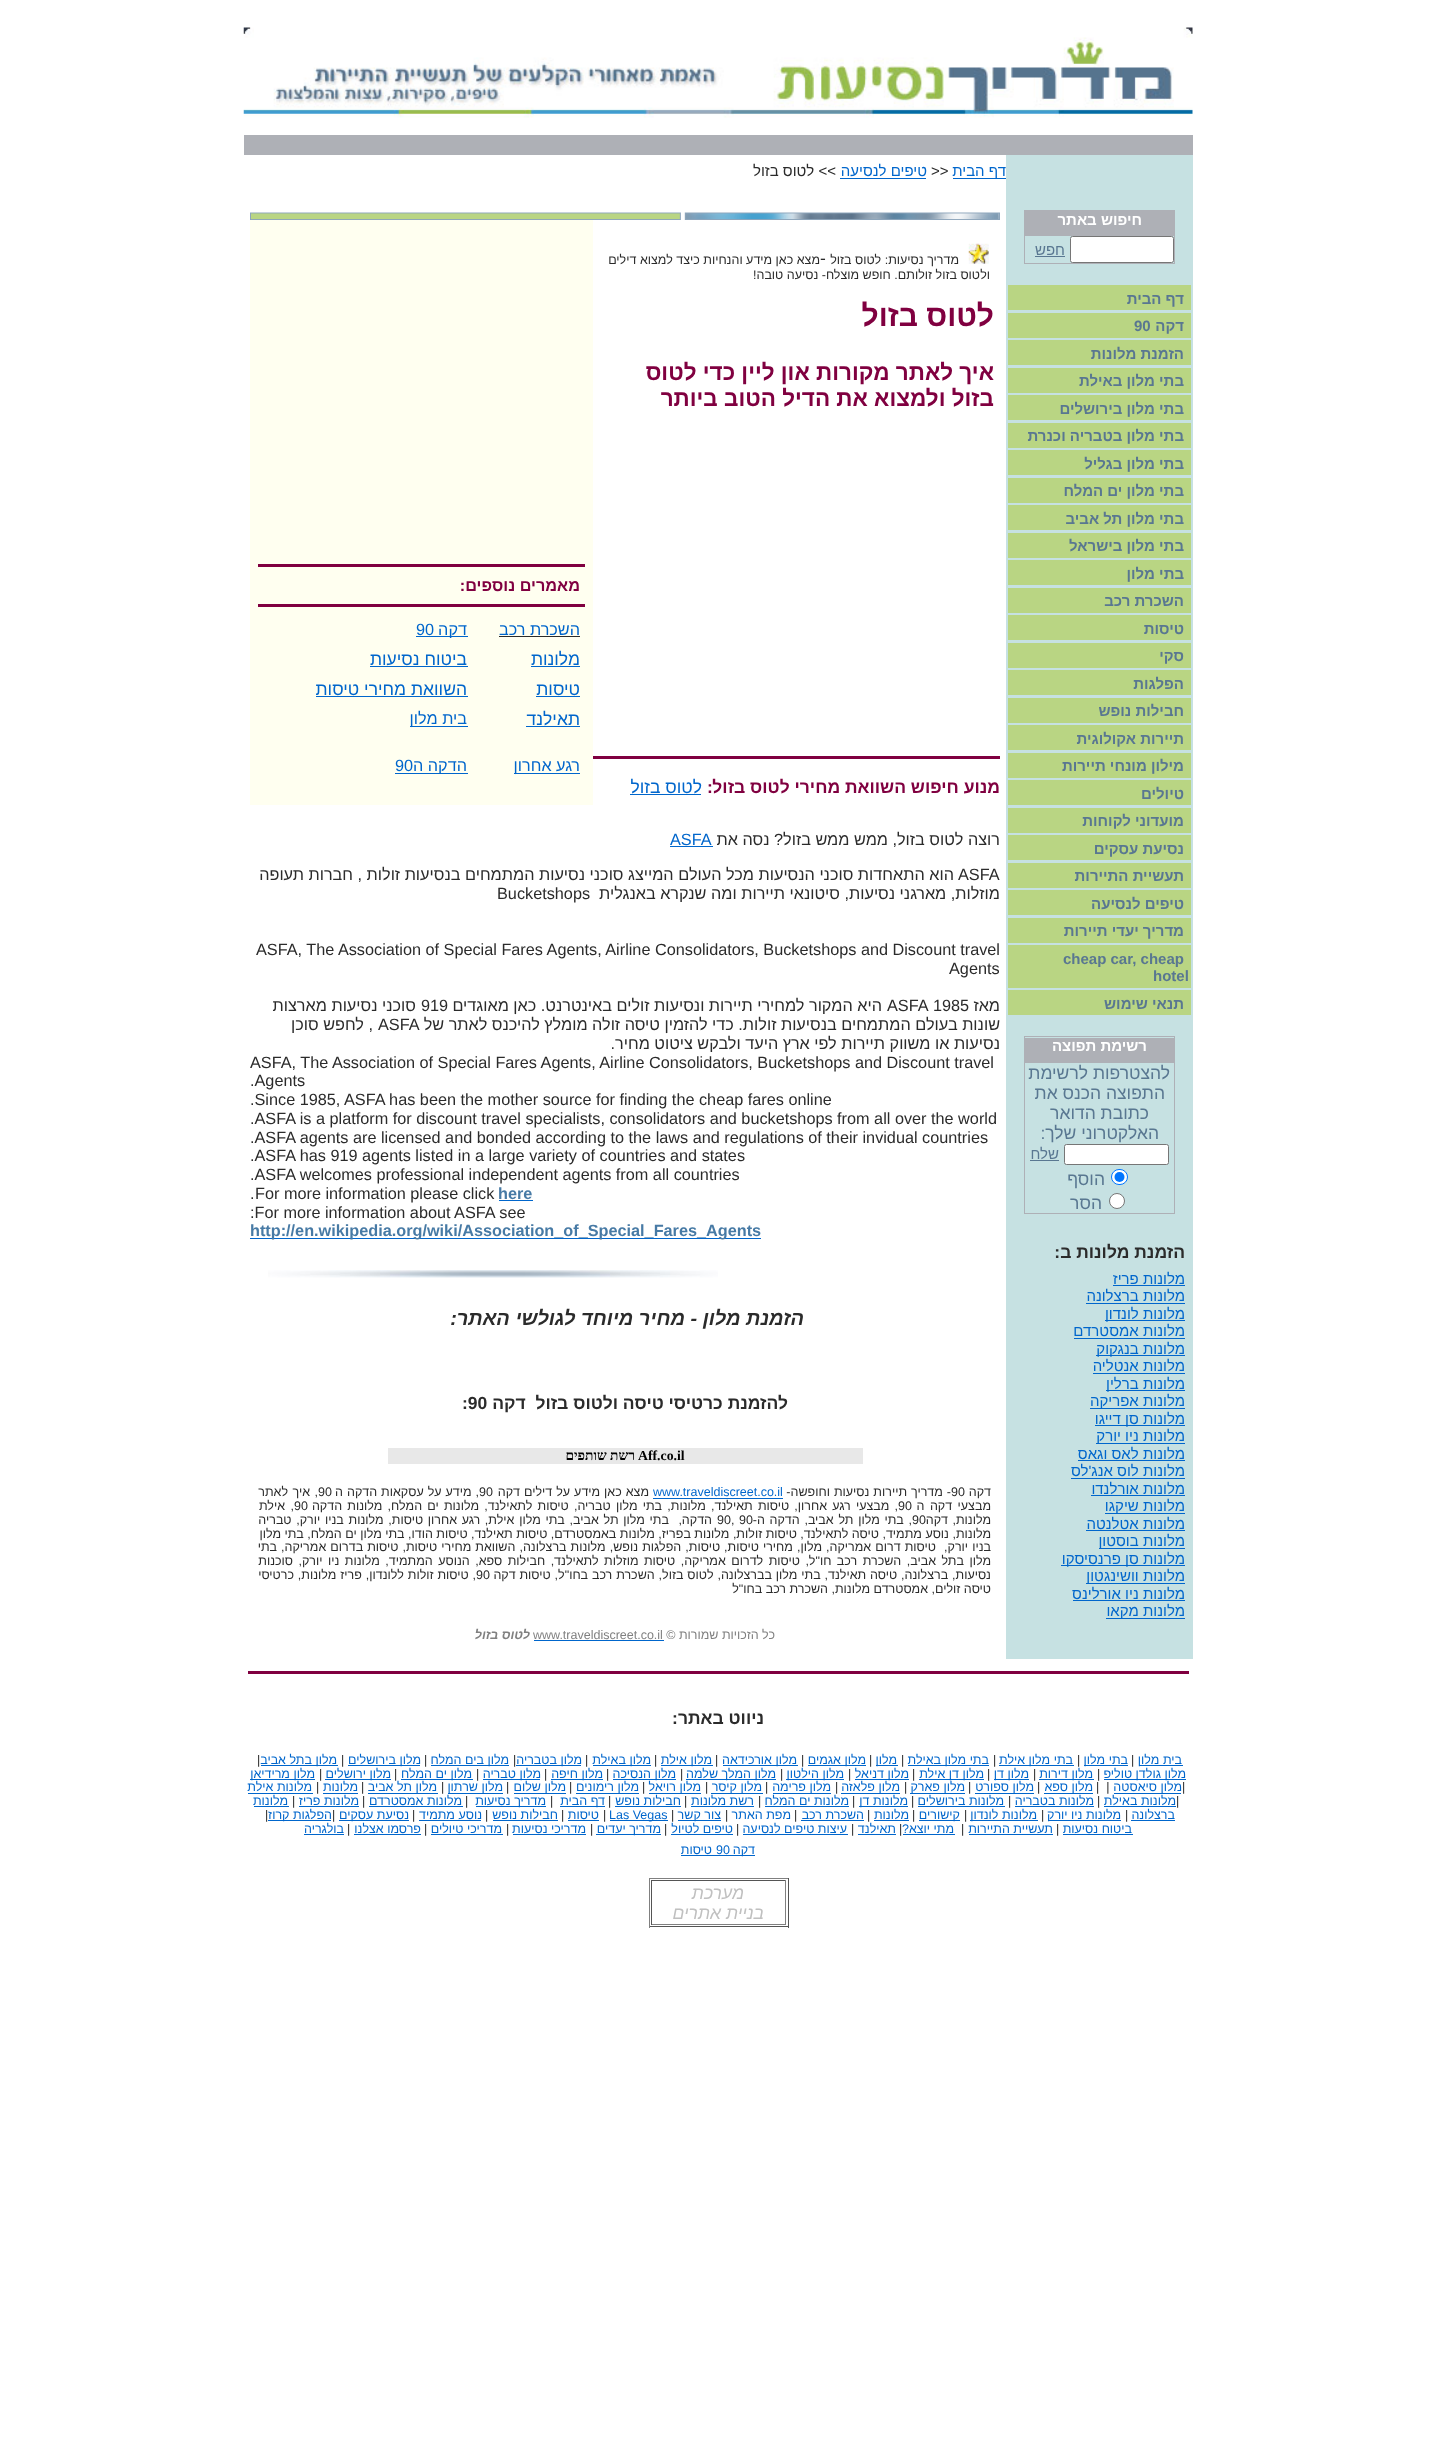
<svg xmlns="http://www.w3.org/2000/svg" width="1436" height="2439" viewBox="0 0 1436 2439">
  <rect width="100%" height="100%" fill="#ffffff"/>
  <image x="243" y="27" width="950" height="91" href="img1.png"/>
  <rect x="244" y="135" width="949" height="20" fill="#aeb0b6"/>
  <rect x="1006" y="155" width="187" height="1504" fill="#c6e1e2"/>
  <rect x="1024.5" y="210.5" width="150" height="53" fill="none" stroke="#aeb0b6"/>
  <rect x="1025" y="211" width="149" height="25" fill="#aeb0b6"/>
  <text x="1142" y="225" font-family="Liberation Sans" font-size="15" font-weight="bold" direction="rtl" fill="#ffffff">חיפוש באתר</text>
  <rect x="1070.5" y="236.5" width="103" height="26" rx="2" fill="#ffffff" stroke="#767676"/>
  <text x="1065" y="255" font-family="Liberation Sans" font-size="15" direction="rtl" fill="#597791">חפש</text>
  <rect x="1035" y="256" width="30" height="1" fill="#597791"/>
  <rect x="1008" y="285" width="183" height="25" fill="#b9d583"/>
  <text x="1184" y="304" font-family="Liberation Sans" font-size="15" font-weight="bold" direction="rtl" fill="#597791">דף הבית</text>
  <rect x="1008" y="313" width="183" height="25" fill="#b9d583"/>
  <text x="1184" y="331" font-family="Liberation Sans" font-size="15" font-weight="bold" direction="rtl" fill="#597791">דקה</text>
  <text x="1134" y="331" font-family="Liberation Sans" font-size="15" font-weight="bold" fill="#597791">90</text>
  <rect x="1008" y="340" width="183" height="25" fill="#b9d583"/>
  <text x="1184" y="359" font-family="Liberation Sans" font-size="15" font-weight="bold" direction="rtl" fill="#597791">הזמנת מלונות</text>
  <rect x="1008" y="368" width="183" height="25" fill="#b9d583"/>
  <text x="1184" y="386" font-family="Liberation Sans" font-size="15" font-weight="bold" direction="rtl" fill="#597791">בתי מלון באילת</text>
  <rect x="1008" y="395" width="183" height="25" fill="#b9d583"/>
  <text x="1184" y="414" font-family="Liberation Sans" font-size="15" font-weight="bold" direction="rtl" fill="#597791">בתי מלון בירושלים</text>
  <rect x="1008" y="423" width="183" height="25" fill="#b9d583"/>
  <text x="1184" y="441" font-family="Liberation Sans" font-size="15" font-weight="bold" direction="rtl" fill="#597791">בתי מלון בטבריה וכנרת</text>
  <rect x="1008" y="450" width="183" height="25" fill="#b9d583"/>
  <text x="1184" y="469" font-family="Liberation Sans" font-size="15" font-weight="bold" direction="rtl" fill="#597791">בתי מלון בגליל</text>
  <rect x="1008" y="478" width="183" height="25" fill="#b9d583"/>
  <text x="1184" y="496" font-family="Liberation Sans" font-size="15" font-weight="bold" direction="rtl" fill="#597791">בתי מלון ים המלח</text>
  <rect x="1008" y="505" width="183" height="25" fill="#b9d583"/>
  <text x="1184" y="524" font-family="Liberation Sans" font-size="15" font-weight="bold" direction="rtl" fill="#597791">בתי מלון תל אביב</text>
  <rect x="1008" y="533" width="183" height="25" fill="#b9d583"/>
  <text x="1184" y="551" font-family="Liberation Sans" font-size="15" font-weight="bold" direction="rtl" fill="#597791">בתי מלון בישראל</text>
  <rect x="1008" y="560" width="183" height="25" fill="#b9d583"/>
  <text x="1184" y="579" font-family="Liberation Sans" font-size="15" font-weight="bold" direction="rtl" fill="#597791">בתי מלון</text>
  <rect x="1008" y="588" width="183" height="25" fill="#b9d583"/>
  <text x="1184" y="606" font-family="Liberation Sans" font-size="15" font-weight="bold" direction="rtl" fill="#597791">השכרת רכב</text>
  <rect x="1008" y="615" width="183" height="25" fill="#b9d583"/>
  <text x="1184" y="634" font-family="Liberation Sans" font-size="15" font-weight="bold" direction="rtl" fill="#597791">טיסות</text>
  <rect x="1008" y="643" width="183" height="25" fill="#b9d583"/>
  <text x="1184" y="661" font-family="Liberation Sans" font-size="15" font-weight="bold" direction="rtl" fill="#597791">סקי</text>
  <rect x="1008" y="670" width="183" height="25" fill="#b9d583"/>
  <text x="1184" y="689" font-family="Liberation Sans" font-size="15" font-weight="bold" direction="rtl" fill="#597791">הפלגות</text>
  <rect x="1008" y="698" width="183" height="25" fill="#b9d583"/>
  <text x="1184" y="716" font-family="Liberation Sans" font-size="15" font-weight="bold" direction="rtl" fill="#597791">חבילות נופש</text>
  <rect x="1008" y="725" width="183" height="25" fill="#b9d583"/>
  <text x="1184" y="744" font-family="Liberation Sans" font-size="15" font-weight="bold" direction="rtl" fill="#597791">תיירות אקולוגית</text>
  <rect x="1008" y="753" width="183" height="25" fill="#b9d583"/>
  <text x="1184" y="771" font-family="Liberation Sans" font-size="15" font-weight="bold" direction="rtl" fill="#597791">מילון מונחי תיירות</text>
  <rect x="1008" y="780" width="183" height="25" fill="#b9d583"/>
  <text x="1184" y="799" font-family="Liberation Sans" font-size="15" font-weight="bold" direction="rtl" fill="#597791">טיולים</text>
  <rect x="1008" y="808" width="183" height="25" fill="#b9d583"/>
  <text x="1184" y="826" font-family="Liberation Sans" font-size="15" font-weight="bold" direction="rtl" fill="#597791">מועדוני לקוחות</text>
  <rect x="1008" y="835" width="183" height="25" fill="#b9d583"/>
  <text x="1184" y="854" font-family="Liberation Sans" font-size="15" font-weight="bold" direction="rtl" fill="#597791">נסיעת עסקים</text>
  <rect x="1008" y="863" width="183" height="25" fill="#b9d583"/>
  <text x="1184" y="881" font-family="Liberation Sans" font-size="15" font-weight="bold" direction="rtl" fill="#597791">תעשיית התיירות</text>
  <rect x="1008" y="890" width="183" height="25" fill="#b9d583"/>
  <text x="1184" y="909" font-family="Liberation Sans" font-size="15" font-weight="bold" direction="rtl" fill="#597791">טיפים לנסיעה</text>
  <rect x="1008" y="918" width="183" height="25" fill="#b9d583"/>
  <text x="1184" y="936" font-family="Liberation Sans" font-size="15" font-weight="bold" direction="rtl" fill="#597791">מדריך יעדי תיירות</text>
  <rect x="1008" y="945" width="183" height="43" fill="#b9d583"/>
  <text x="1063" y="964" font-family="Liberation Sans" font-size="15" font-weight="bold" fill="#597791">cheap car, cheap</text>
  <text x="1153" y="981" font-family="Liberation Sans" font-size="15" font-weight="bold" fill="#597791">hotel</text>
  <rect x="1008" y="990" width="183" height="25" fill="#b9d583"/>
  <text x="1184" y="1009" font-family="Liberation Sans" font-size="15" font-weight="bold" direction="rtl" fill="#597791">תנאי שימוש</text>
  <rect x="1024.5" y="1036.5" width="150" height="177" fill="none" stroke="#aeb0b6"/>
  <rect x="1025" y="1038" width="149" height="25" fill="#aeb0b6"/>
  <text x="1147" y="1051" font-family="Liberation Sans" font-size="15" font-weight="bold" direction="rtl" fill="#ffffff">רשימת תפוצה</text>
  <text x="1170" y="1079" font-family="Liberation Sans" font-size="17.5" direction="rtl" fill="#597791">להצטרפות לרשימת</text>
  <text x="1165" y="1099" font-family="Liberation Sans" font-size="17.5" direction="rtl" fill="#597791">התפוצה הכנס את</text>
  <text x="1149" y="1119" font-family="Liberation Sans" font-size="17.5" direction="rtl" fill="#597791">כתובת הדואר</text>
  <text x="1159" y="1139" font-family="Liberation Sans" font-size="17.5" direction="rtl" fill="#597791">האלקטרוני שלך:</text>
  <rect x="1064.5" y="1144.5" width="104" height="20" rx="2" fill="#ffffff" stroke="#767676"/>
  <text x="1059" y="1159" font-family="Liberation Sans" font-size="15" direction="rtl" fill="#597791">שלח</text>
  <rect x="1030" y="1160" width="29" height="1" fill="#597791"/>
  <rect x="1111.5" y="1169.5" width="16" height="15" rx="7.5" fill="#ffffff" stroke="#0075ff"/>
  <circle cx="1119.5" cy="1177" r="5" fill="#0075ff"/>
  <text x="1105" y="1185" font-family="Liberation Sans" font-size="17.5" direction="rtl" fill="#597791">הוסף</text>
  <circle cx="1117" cy="1201" r="7.5" fill="#ffffff" stroke="#767676"/>
  <text x="1102" y="1209" font-family="Liberation Sans" font-size="17.5" direction="rtl" fill="#597791">הסר</text>
  <text x="1185" y="1258" font-family="Liberation Sans" font-size="17.5" font-weight="bold" direction="rtl" fill="#2b2b2b">הזמנת מלונות ב:</text>
  <text x="1185" y="1284" font-family="Liberation Sans" font-size="15" direction="rtl" fill="#0066cc">מלונות פריז</text>
  <rect x="1113" y="1285" width="72" height="1" fill="#0066cc"/>
  <text x="1185" y="1301" font-family="Liberation Sans" font-size="15" direction="rtl" fill="#0066cc">מלונות ברצלונה</text>
  <rect x="1086" y="1303" width="99" height="1" fill="#0066cc"/>
  <rect x="1105" y="1320" width="80" height="1" fill="#0066cc"/>
  <text x="1185" y="1319" font-family="Liberation Sans" font-size="15" direction="rtl" fill="#0066cc">מלונות לונדון</text>
  <text x="1185" y="1336" font-family="Liberation Sans" font-size="15" direction="rtl" fill="#0066cc">מלונות אמסטרדם</text>
  <rect x="1074" y="1338" width="111" height="1" fill="#0066cc"/>
  <rect x="1096" y="1355" width="89" height="1" fill="#0066cc"/>
  <text x="1185" y="1354" font-family="Liberation Sans" font-size="15" direction="rtl" fill="#0066cc">מלונות בנגקוק</text>
  <text x="1185" y="1371" font-family="Liberation Sans" font-size="15" direction="rtl" fill="#0066cc">מלונות אנטליה</text>
  <rect x="1093" y="1373" width="92" height="1" fill="#0066cc"/>
  <rect x="1106" y="1390" width="79" height="1" fill="#0066cc"/>
  <text x="1185" y="1389" font-family="Liberation Sans" font-size="15" direction="rtl" fill="#0066cc">מלונות ברלין</text>
  <rect x="1090" y="1408" width="95" height="1" fill="#0066cc"/>
  <text x="1185" y="1406" font-family="Liberation Sans" font-size="15" direction="rtl" fill="#0066cc">מלונות אפריקה</text>
  <rect x="1095" y="1425" width="90" height="1" fill="#0066cc"/>
  <text x="1185" y="1424" font-family="Liberation Sans" font-size="15" direction="rtl" fill="#0066cc">מלונות סן דייגו</text>
  <rect x="1096" y="1443" width="89" height="1" fill="#0066cc"/>
  <text x="1185" y="1441" font-family="Liberation Sans" font-size="15" direction="rtl" fill="#0066cc">מלונות ניו יורק</text>
  <text x="1185" y="1459" font-family="Liberation Sans" font-size="15" direction="rtl" fill="#0066cc">מלונות לאס וגאס</text>
  <rect x="1078" y="1460" width="107" height="1" fill="#0066cc"/>
  <text x="1185" y="1476" font-family="Liberation Sans" font-size="15" direction="rtl" fill="#0066cc">מלונות לוס אנג'לס</text>
  <rect x="1071" y="1478" width="114" height="1" fill="#0066cc"/>
  <text x="1185" y="1494" font-family="Liberation Sans" font-size="15" direction="rtl" fill="#0066cc">מלונות אורלנדו</text>
  <rect x="1091" y="1495" width="94" height="1" fill="#0066cc"/>
  <rect x="1105" y="1513" width="80" height="1" fill="#0066cc"/>
  <text x="1185" y="1511" font-family="Liberation Sans" font-size="15" direction="rtl" fill="#0066cc">מלונות שיקגו</text>
  <text x="1185" y="1529" font-family="Liberation Sans" font-size="15" direction="rtl" fill="#0066cc">מלונות אטלנטה</text>
  <rect x="1086" y="1530" width="99" height="1" fill="#0066cc"/>
  <rect x="1099" y="1548" width="86" height="1" fill="#0066cc"/>
  <text x="1185" y="1546" font-family="Liberation Sans" font-size="15" direction="rtl" fill="#0066cc">מלונות בוסטון</text>
  <rect x="1061" y="1565" width="124" height="1" fill="#0066cc"/>
  <text x="1185" y="1564" font-family="Liberation Sans" font-size="15" direction="rtl" fill="#0066cc">מלונות סן פרנסיסקו</text>
  <rect x="1086" y="1583" width="99" height="1" fill="#0066cc"/>
  <text x="1185" y="1581" font-family="Liberation Sans" font-size="15" direction="rtl" fill="#0066cc">מלונות וושינגטון</text>
  <text x="1185" y="1599" font-family="Liberation Sans" font-size="15" direction="rtl" fill="#0066cc">מלונות ניו אורלינס</text>
  <rect x="1073" y="1600" width="112" height="1" fill="#0066cc"/>
  <rect x="1106" y="1618" width="79" height="1" fill="#0066cc"/>
  <text x="1185" y="1616" font-family="Liberation Sans" font-size="15" direction="rtl" fill="#0066cc">מלונות מקאו</text>
  <rect x="953" y="178" width="53" height="1" fill="#0066cc"/>
  <text x="1006" y="176" font-family="Liberation Sans" font-size="15" direction="rtl" fill="#0066cc">דף הבית</text>
  <text x="931" y="176" font-family="Liberation Sans" font-size="15" fill="#2b2b2b">&gt;&gt;</text>
  <text x="927" y="176" font-family="Liberation Sans" font-size="15" direction="rtl" fill="#0066cc">טיפים לנסיעה</text>
  <rect x="840" y="178" width="86" height="1" fill="#0066cc"/>
  <text x="836" y="176" font-family="Liberation Sans" font-size="15" direction="rtl" fill="#2b2b2b">&gt;&gt; לטוס בזול</text>
  <image x="250" y="212" width="750" height="8" href="img2.png"/>
  <image x="968" y="243" width="21" height="21" href="img3.png"/>
  <text x="959" y="264" font-family="Liberation Sans" font-size="12.5" direction="rtl" fill="#2b2b2b">מדריך נסיעות: לטוס בזול</text>
  <text x="820" y="264" font-family="Liberation Sans" font-size="17.5" fill="#2b2b2b">-</text>
  <text x="820" y="264" font-family="Liberation Sans" font-size="12.5" direction="rtl" fill="#2b2b2b">מצא כאן מידע והנחיות כיצד למצוא דילים</text>
  <text x="990" y="279" font-family="Liberation Sans" font-size="12.5" direction="rtl" fill="#2b2b2b">ול</text>
  <text x="980" y="279" font-family="Liberation Sans" font-size="12.5" direction="rtl" fill="#2b2b2b">טוס בזול זולותם. חופש מוצלח- נסיעה טובה!</text>
  <text x="994" y="326" font-family="Liberation Sans" font-size="30" font-weight="bold" direction="rtl" fill="#800040">לטוס בזול</text>
  <text x="994" y="380" font-family="Liberation Sans" font-size="22.5" font-weight="bold" direction="rtl" fill="#800040">איך לאתר מקורות און ליין כדי לטוס</text>
  <text x="994" y="406" font-family="Liberation Sans" font-size="22.5" font-weight="bold" direction="rtl" fill="#800040">בזול ולמצוא את הדיל הטוב ביותר</text>
  <rect x="593" y="756" width="407" height="3" fill="#800040"/>
  <text x="1000" y="793" font-family="Liberation Sans" font-size="17.5" font-weight="bold" direction="rtl" fill="#800040">מנוע חיפוש השוואת מחירי לטוס בזול</text>
  <text x="707" y="793" font-family="Liberation Sans" font-size="17.5" font-weight="bold" fill="#800040">:</text>
  <text x="702" y="793" font-family="Liberation Sans" font-size="17.5" direction="rtl" fill="#0066cc">לטוס בזול</text>
  <rect x="630" y="794" width="71" height="1" fill="#0066cc"/>
  <rect x="250" y="220" width="343" height="585" fill="#fffff0"/>
  <rect x="258" y="564" width="327" height="3" fill="#800040"/>
  <text x="580" y="591" font-family="Liberation Sans" font-size="16.25" font-weight="bold" direction="rtl" fill="#800040">מאמרים נוספים:</text>
  <rect x="258" y="604" width="327" height="3" fill="#800040"/>
  <text x="580" y="635" font-family="Liberation Sans" font-size="16.25" direction="rtl" fill="#0066cc">השכרת רכב</text>
  <rect x="499" y="636" width="81" height="1" fill="#2b2b2b"/>
  <rect x="416" y="636" width="52" height="1" fill="#0066cc"/>
  <text x="467" y="635" font-family="Liberation Sans" font-size="16.25" direction="rtl" fill="#0066cc">דקה</text>
  <text x="416" y="635" font-family="Liberation Sans" font-size="16.25" fill="#0066cc">90</text>
  <text x="580" y="665" font-family="Liberation Sans" font-size="17.5" direction="rtl" fill="#0066cc">מלונות</text>
  <rect x="531" y="666" width="49" height="1" fill="#0066cc"/>
  <text x="467" y="665" font-family="Liberation Sans" font-size="17.5" direction="rtl" fill="#0066cc">ביטוח נסיעות</text>
  <rect x="370" y="666" width="98" height="1" fill="#0066cc"/>
  <text x="580" y="695" font-family="Liberation Sans" font-size="17.5" direction="rtl" fill="#0066cc">טיסות</text>
  <rect x="536" y="696" width="44" height="1" fill="#0066cc"/>
  <text x="467" y="695" font-family="Liberation Sans" font-size="17.5" direction="rtl" fill="#0066cc">השוואת מחירי טיסות</text>
  <rect x="316" y="696" width="152" height="1" fill="#0066cc"/>
  <text x="580" y="725" font-family="Liberation Sans" font-size="17.5" direction="rtl" fill="#0066cc">תאילנד</text>
  <rect x="526" y="726" width="54" height="1" fill="#0066cc"/>
  <rect x="410" y="726" width="58" height="1" fill="#0066cc"/>
  <text x="467" y="724" font-family="Liberation Sans" font-size="16.25" direction="rtl" fill="#0066cc">בית מלון</text>
  <rect x="514" y="773" width="66" height="1" fill="#0066cc"/>
  <text x="580" y="771" font-family="Liberation Sans" font-size="16.25" direction="rtl" fill="#0066cc">רגע אחרון</text>
  <rect x="395" y="773" width="73" height="1" fill="#0066cc"/>
  <text x="467" y="771" font-family="Liberation Sans" font-size="16.25" direction="rtl" fill="#0066cc">הדקה ה</text>
  <text x="395" y="771" font-family="Liberation Sans" font-size="16.25" fill="#0066cc">90</text>
  <text x="1000" y="845" font-family="Liberation Sans" font-size="16.25" direction="rtl" fill="#2b2b2b">רוצה לטוס בזול, ממש ממש בזול? נסה את</text>
  <text x="670" y="845" font-family="Liberation Sans" font-size="16.25" fill="#0066cc">ASFA</text>
  <rect x="670" y="846" width="43" height="1" fill="#0066cc"/>
  <text x="958" y="880" font-family="Liberation Sans" font-size="16.25" fill="#2b2b2b">ASFA</text>
  <text x="954" y="880" font-family="Liberation Sans" font-size="16.25" direction="rtl" fill="#2b2b2b">הוא התאחדות סוכני הנסיעות מכל העולם המייצג סוכני נסיעות המתמחים בנסיעות זולות , חברות תעופה</text>
  <text x="1000" y="899" font-family="Liberation Sans" font-size="16.25" direction="rtl" fill="#2b2b2b">מוזלות, מארגני נסיעות, סיטונאי תיירות ומה שנקרא באנגלית</text>
  <text x="497" y="899" font-family="Liberation Sans" font-size="16.25" fill="#2b2b2b">Bucketshops</text>
  <text x="256" y="955" font-family="Liberation Sans" font-size="16.25" fill="#2b2b2b">ASFA, The Association of Special Fares Agents, Airline Consolidators, Bucketshops and Discount travel</text>
  <text x="949" y="974" font-family="Liberation Sans" font-size="16.25" fill="#2b2b2b">Agents</text>
  <text x="1000" y="1011" font-family="Liberation Sans" font-size="16.25" direction="rtl" fill="#2b2b2b">מאז</text>
  <text x="933" y="1011" font-family="Liberation Sans" font-size="16.25" fill="#2b2b2b">1985</text>
  <text x="887" y="1011" font-family="Liberation Sans" font-size="16.25" fill="#2b2b2b">ASFA</text>
  <text x="882" y="1011" font-family="Liberation Sans" font-size="16.25" direction="rtl" fill="#2b2b2b">היא המקור למחירי תיירות ונסיעות זולים באינטרנט. כאן מאוגדים</text>
  <text x="421" y="1011" font-family="Liberation Sans" font-size="16.25" fill="#2b2b2b">919</text>
  <text x="416" y="1011" font-family="Liberation Sans" font-size="16.25" direction="rtl" fill="#2b2b2b">סוכני נסיעות מארצות</text>
  <text x="1000" y="1030" font-family="Liberation Sans" font-size="16.25" direction="rtl" fill="#2b2b2b">שונות בעולם המתמחים בנסיעות זולות. כדי להזמין טיסה זולה מומלץ להיכנס לאתר של</text>
  <text x="378" y="1030" font-family="Liberation Sans" font-size="16.25" fill="#2b2b2b">ASFA</text>
  <text x="373" y="1030" font-family="Liberation Sans" font-size="16.25" direction="rtl" fill="#2b2b2b">, לחפש סוכן</text>
  <text x="1000" y="1049" font-family="Liberation Sans" font-size="16.25" direction="rtl" fill="#2b2b2b">נסיעות או משווק תיירות לפי ארץ היעד ולבקש ציטוט מחיר.</text>
  <text x="250" y="1068" font-family="Liberation Sans" font-size="16.25" fill="#2b2b2b">ASFA, The Association of Special Fares Agents, Airline Consolidators, Bucketshops and Discount travel</text>
  <text x="250" y="1086" font-family="Liberation Sans" font-size="16.25" fill="#2b2b2b">.Agents</text>
  <text x="250" y="1105" font-family="Liberation Sans" font-size="16.25" fill="#2b2b2b">.Since 1985, ASFA has been the mother source for finding the cheap fares online</text>
  <text x="250" y="1124" font-family="Liberation Sans" font-size="16.25" fill="#2b2b2b">.ASFA is a platform for discount travel specialists, consolidators and bucketshops from all over the world</text>
  <text x="250" y="1143" font-family="Liberation Sans" font-size="16.25" fill="#2b2b2b">.ASFA agents are licensed and bonded according to the laws and regulations of their invidual countries</text>
  <text x="250" y="1161" font-family="Liberation Sans" font-size="16.25" fill="#2b2b2b">.ASFA has 919 agents listed in a large variety of countries and states</text>
  <text x="250" y="1180" font-family="Liberation Sans" font-size="16.25" fill="#2b2b2b">.ASFA welcomes professional independent agents from all countries</text>
  <text x="498" y="1199" font-family="Liberation Sans" font-size="16.25" font-weight="bold" fill="#477aa5">here</text>
  <rect x="499" y="1200" width="34" height="1" fill="#0066cc"/>
  <text x="255" y="1199" font-family="Liberation Sans" font-size="16.25" fill="#2b2b2b">For more information please click</text>
  <text x="250" y="1199" font-family="Liberation Sans" font-size="16.25" fill="#2b2b2b">.</text>
  <text x="250" y="1218" font-family="Liberation Sans" font-size="16.25" fill="#2b2b2b">:For more information about ASFA see</text>
  <rect x="250" y="1238" width="511" height="1" fill="#0066cc"/>
  <text x="250" y="1236" font-family="Liberation Sans" font-size="16.25" font-weight="bold" fill="#477aa5">http://en.wikipedia.org/wiki/Association_of_Special_Fares_Agents</text>
  <image x="268" y="1270" width="450" height="8" href="img4.png"/>
  <text x="804" y="1325" font-family="Liberation Sans" font-size="20" font-weight="bold" font-style="italic" direction="rtl" fill="#2b2b2b">הזמנת מלון - מחיר מיוחד לגולשי האתר:</text>
  <text x="788" y="1409" font-family="Liberation Sans" font-size="17.5" font-weight="bold" direction="rtl" fill="#2b2b2b" xml:space="preserve">להזמנת כרטיסי טיסה ולטוס בזול  דקה</text>
  <text x="462" y="1409" font-family="Liberation Sans" font-size="17.5" font-weight="bold" fill="#2b2b2b">:90</text>
  <rect x="388" y="1448" width="475" height="16" fill="#e8e8e8"/>
  <text x="638" y="1460" font-family="Liberation Serif" font-size="13.75" font-weight="bold" fill="#000000">Aff.co.il</text>
  <text x="635" y="1460" font-family="Liberation Serif" font-size="13.75" font-weight="bold" direction="rtl" fill="#000000">רשת שותפים</text>
  <text x="991" y="1496" font-family="Liberation Sans" font-size="12.5" direction="rtl" fill="#2b2b2b">דקה</text>
  <text x="951" y="1496" font-family="Liberation Sans" font-size="12.5" fill="#2b2b2b">90</text>
  <text x="951" y="1496" word-spacing="0.5" font-family="Liberation Sans" font-size="12.5" direction="rtl" fill="#2b2b2b">- מדריך תיירות נסיעות וחופשה-</text>
  <text x="653" y="1496" font-family="Liberation Sans" font-size="12.5" fill="#0066cc">www.traveldiscreet.co.il</text>
  <rect x="653" y="1498" width="130" height="1" fill="#0066cc"/>
  <text x="649" y="1496" word-spacing="0.5" font-family="Liberation Sans" font-size="12.5" direction="rtl" fill="#2b2b2b">מצא כאן מידע על דילים דקה</text>
  <text x="479" y="1496" font-family="Liberation Sans" font-size="12.5" fill="#2b2b2b">90</text>
  <text x="479" y="1496" word-spacing="0.5" font-family="Liberation Sans" font-size="12.5" direction="rtl" fill="#2b2b2b">, מידע על עסקאות הדקה ה</text>
  <text x="318" y="1496" font-family="Liberation Sans" font-size="12.5" fill="#2b2b2b">90</text>
  <text x="318" y="1496" word-spacing="1" font-family="Liberation Sans" font-size="12.5" direction="rtl" fill="#2b2b2b">, איך לאתר</text>
  <text x="991" y="1510" word-spacing="2" font-family="Liberation Sans" font-size="12.5" direction="rtl" fill="#2b2b2b">מבצעי דקה ה</text>
  <text x="898" y="1510" font-family="Liberation Sans" font-size="12.5" fill="#2b2b2b">90</text>
  <text x="898" y="1510" word-spacing="1.75" font-family="Liberation Sans" font-size="12.5" direction="rtl" fill="#2b2b2b">, מבצעי רגע אחרון, טיסות תאילנד, מלונות, בתי מלון טבריה, טיסות לתאילנד, מלונות ים המלח, מלונות הדקה</text>
  <text x="294" y="1510" font-family="Liberation Sans" font-size="12.5" fill="#2b2b2b">90</text>
  <text x="294" y="1510" word-spacing="2" font-family="Liberation Sans" font-size="12.5" direction="rtl" fill="#2b2b2b">, אילת</text>
  <text x="991" y="1524" word-spacing="1" font-family="Liberation Sans" font-size="12.5" direction="rtl" fill="#2b2b2b">מלונות, דקה</text>
  <text x="912" y="1524" font-family="Liberation Sans" font-size="12.5" fill="#2b2b2b">90</text>
  <text x="912" y="1524" word-spacing="1.25" font-family="Liberation Sans" font-size="12.5" direction="rtl" fill="#2b2b2b">, בתי מלון תל אביב, הדקה ה-</text>
  <text x="739" y="1524" font-family="Liberation Sans" font-size="12.5" fill="#2b2b2b">90</text>
  <text x="717" y="1524" font-family="Liberation Sans" font-size="12.5" fill="#2b2b2b">90,</text>
  <text x="712" y="1524" word-spacing="1.25" font-family="Liberation Sans" font-size="12.5" direction="rtl" fill="#2b2b2b" xml:space="preserve">הדקה,  בתי מלון תל אביב, בתי מלון אילת, רגע אחרון טיסות, מלונות בניו יורק, טבריה</text>
  <text x="991" y="1538" font-family="Liberation Sans" font-size="12.5" direction="rtl" fill="#2b2b2b">מלונות, נוסע מתמיד, טיסה לתאילנד, טיסות זולות, מלונות בפריז, מלונות באמסטרדם, טיסות תאילנד, טיסות הודו, בתי מלון ים המלח, בתי מלון</text>
  <text x="991" y="1551" word-spacing="0.6" font-family="Liberation Sans" font-size="12.5" direction="rtl" fill="#2b2b2b" xml:space="preserve">בניו יורק,  טיסות דרום אמריקה, מלון, מחירי טיסות, טיסות, הפלגות נופש, מלונות ברצלונה, השוואת מחירי טיסות, טיסות בדרום אמריקה, בתי</text>
  <text x="991" y="1565" word-spacing="2" font-family="Liberation Sans" font-size="12.5" direction="rtl" fill="#2b2b2b">מלון בתל אביב, השכרת רכב חו"ל, טיסות לדרום אמריקה, טיסות מוזלות לתאילנד, חבילות ספא, הנוסע המתמיד, מלונות ניו יורק, סוכנות</text>
  <text x="991" y="1579" word-spacing="0.4" font-family="Liberation Sans" font-size="12.5" direction="rtl" fill="#2b2b2b">נסיעות, ברצלונה, טיסה תאילנד, בתי מלון בברצלונה, לטוס בזול, השכרת רכב בחו"ל, טיסות דקה</text>
  <text x="476" y="1579" font-family="Liberation Sans" font-size="12.5" fill="#2b2b2b">90</text>
  <text x="476" y="1579" word-spacing="0.4" font-family="Liberation Sans" font-size="12.5" direction="rtl" fill="#2b2b2b">, טיסות זולות ללונדון, פריז מלונות, כרטיסי</text>
  <text x="991" y="1593" font-family="Liberation Sans" font-size="12.5" direction="rtl" fill="#2b2b2b">טיסה זולים, אמסטרדם מלונות, השכרת רכב בחו"ל</text>
  <text x="775" y="1639" font-family="Liberation Sans" font-size="12.5" direction="rtl" fill="#808080">כל הזכויות שמורות ©</text>
  <text x="533" y="1639" font-family="Liberation Sans" font-size="12.5" fill="#808080">www.traveldiscreet.co.il</text>
  <rect x="534" y="1640" width="130" height="1" fill="#0066cc"/>
  <text x="530" y="1639" font-family="Liberation Sans" font-size="12.5" font-weight="bold" font-style="italic" direction="rtl" fill="#808080">לטוס בזול</text>
  <rect x="248" y="1671" width="941" height="3" fill="#800040"/>
  <text x="764" y="1724" font-family="Liberation Sans" font-size="17.5" font-weight="bold" direction="rtl" fill="#2b2b2b">ניווט באתר:</text>
  <rect x="1139" y="1765" width="44" height="1" fill="#0066cc"/>
  <text x="1182" y="1764" font-family="Liberation Sans" font-size="12.5" direction="rtl" fill="#0066cc">בית מלון</text>
  <text x="1131" y="1764" font-family="Liberation Sans" font-size="12.5" fill="#2b2b2b">|</text>
  <rect x="1084" y="1765" width="44" height="1" fill="#0066cc"/>
  <text x="1128" y="1764" font-family="Liberation Sans" font-size="12.5" direction="rtl" fill="#0066cc">בתי מלון</text>
  <text x="1077" y="1764" font-family="Liberation Sans" font-size="12.5" fill="#2b2b2b">|</text>
  <rect x="999" y="1765" width="75" height="1" fill="#0066cc"/>
  <text x="1073" y="1764" font-family="Liberation Sans" font-size="12.5" direction="rtl" fill="#0066cc">בתי מלון אילת</text>
  <text x="993" y="1764" font-family="Liberation Sans" font-size="12.5" fill="#2b2b2b">|</text>
  <rect x="908" y="1765" width="81" height="1" fill="#0066cc"/>
  <text x="989" y="1764" font-family="Liberation Sans" font-size="12.5" direction="rtl" fill="#0066cc">בתי מלון באילת</text>
  <text x="901" y="1764" font-family="Liberation Sans" font-size="12.5" fill="#2b2b2b">|</text>
  <rect x="876" y="1765" width="22" height="1" fill="#0066cc"/>
  <text x="897" y="1764" font-family="Liberation Sans" font-size="12.5" direction="rtl" fill="#0066cc">מלון</text>
  <text x="869" y="1764" font-family="Liberation Sans" font-size="12.5" fill="#2b2b2b">|</text>
  <rect x="808" y="1765" width="58" height="1" fill="#0066cc"/>
  <text x="866" y="1764" font-family="Liberation Sans" font-size="12.5" direction="rtl" fill="#0066cc">מלון אגמים</text>
  <text x="801" y="1764" font-family="Liberation Sans" font-size="12.5" fill="#2b2b2b">|</text>
  <rect x="723" y="1765" width="75" height="1" fill="#0066cc"/>
  <text x="797" y="1764" font-family="Liberation Sans" font-size="12.5" direction="rtl" fill="#0066cc">מלון אורכידאה</text>
  <text x="715" y="1764" font-family="Liberation Sans" font-size="12.5" fill="#2b2b2b">|</text>
  <rect x="661" y="1765" width="52" height="1" fill="#0066cc"/>
  <text x="712" y="1764" font-family="Liberation Sans" font-size="12.5" direction="rtl" fill="#0066cc">מלון אילת</text>
  <text x="654" y="1764" font-family="Liberation Sans" font-size="12.5" fill="#2b2b2b">|</text>
  <rect x="593" y="1765" width="58" height="1" fill="#0066cc"/>
  <text x="651" y="1764" font-family="Liberation Sans" font-size="12.5" direction="rtl" fill="#0066cc">מלון באילת</text>
  <text x="585" y="1764" font-family="Liberation Sans" font-size="12.5" fill="#2b2b2b">|</text>
  <rect x="516" y="1765" width="65" height="1" fill="#0066cc"/>
  <text x="582" y="1764" font-family="Liberation Sans" font-size="12.5" direction="rtl" fill="#0066cc">מלון בטבריה</text>
  <text x="513" y="1764" font-family="Liberation Sans" font-size="12.5" fill="#2b2b2b">|</text>
  <rect x="431" y="1765" width="78" height="1" fill="#0066cc"/>
  <text x="509" y="1764" font-family="Liberation Sans" font-size="12.5" direction="rtl" fill="#0066cc">מלון בים המלח</text>
  <text x="424" y="1764" font-family="Liberation Sans" font-size="12.5" fill="#2b2b2b">|</text>
  <rect x="348" y="1765" width="72" height="1" fill="#0066cc"/>
  <text x="421" y="1764" font-family="Liberation Sans" font-size="12.5" direction="rtl" fill="#0066cc">מלון בירושלים</text>
  <text x="341" y="1764" font-family="Liberation Sans" font-size="12.5" fill="#2b2b2b">|</text>
  <rect x="261" y="1765" width="77" height="1" fill="#0066cc"/>
  <text x="337" y="1764" font-family="Liberation Sans" font-size="12.5" direction="rtl" fill="#0066cc">מלון בתל אביב</text>
  <text x="257" y="1764" font-family="Liberation Sans" font-size="12.5" fill="#2b2b2b">|</text>
  <rect x="1104" y="1779" width="82" height="1" fill="#0066cc"/>
  <text x="1186" y="1778" font-family="Liberation Sans" font-size="12.5" direction="rtl" fill="#0066cc">מלון גולדן טוליפ</text>
  <text x="1097" y="1778" font-family="Liberation Sans" font-size="12.5" fill="#2b2b2b">|</text>
  <rect x="1039" y="1779" width="55" height="1" fill="#0066cc"/>
  <text x="1093" y="1778" font-family="Liberation Sans" font-size="12.5" direction="rtl" fill="#0066cc">מלון דירות</text>
  <text x="1033" y="1778" font-family="Liberation Sans" font-size="12.5" fill="#2b2b2b">|</text>
  <rect x="994" y="1779" width="35" height="1" fill="#0066cc"/>
  <text x="1029" y="1778" font-family="Liberation Sans" font-size="12.5" direction="rtl" fill="#0066cc">מלון דן</text>
  <text x="987" y="1778" font-family="Liberation Sans" font-size="12.5" fill="#2b2b2b">|</text>
  <rect x="919" y="1779" width="65" height="1" fill="#0066cc"/>
  <text x="984" y="1778" font-family="Liberation Sans" font-size="12.5" direction="rtl" fill="#0066cc">מלון דן אילת</text>
  <text x="912" y="1778" font-family="Liberation Sans" font-size="12.5" fill="#2b2b2b">|</text>
  <rect x="855" y="1779" width="54" height="1" fill="#0066cc"/>
  <text x="909" y="1778" font-family="Liberation Sans" font-size="12.5" direction="rtl" fill="#0066cc">מלון דניאל</text>
  <text x="848" y="1778" font-family="Liberation Sans" font-size="12.5" fill="#2b2b2b">|</text>
  <rect x="786" y="1779" width="58" height="1" fill="#0066cc"/>
  <text x="844" y="1778" font-family="Liberation Sans" font-size="12.5" direction="rtl" fill="#0066cc">מלון הילטון</text>
  <text x="780" y="1778" font-family="Liberation Sans" font-size="12.5" fill="#2b2b2b">|</text>
  <rect x="686" y="1779" width="90" height="1" fill="#0066cc"/>
  <text x="776" y="1778" font-family="Liberation Sans" font-size="12.5" direction="rtl" fill="#0066cc">מלון המלך שלמה</text>
  <text x="680" y="1778" font-family="Liberation Sans" font-size="12.5" fill="#2b2b2b">|</text>
  <rect x="613" y="1779" width="63" height="1" fill="#0066cc"/>
  <text x="676" y="1778" font-family="Liberation Sans" font-size="12.5" direction="rtl" fill="#0066cc">מלון הנסיכה</text>
  <text x="606" y="1778" font-family="Liberation Sans" font-size="12.5" fill="#2b2b2b">|</text>
  <rect x="551" y="1779" width="52" height="1" fill="#0066cc"/>
  <text x="603" y="1778" font-family="Liberation Sans" font-size="12.5" direction="rtl" fill="#0066cc">מלון חיפה</text>
  <text x="544" y="1778" font-family="Liberation Sans" font-size="12.5" fill="#2b2b2b">|</text>
  <rect x="483" y="1779" width="57" height="1" fill="#0066cc"/>
  <text x="541" y="1778" font-family="Liberation Sans" font-size="12.5" direction="rtl" fill="#0066cc">מלון טבריה</text>
  <text x="476" y="1778" font-family="Liberation Sans" font-size="12.5" fill="#2b2b2b">|</text>
  <rect x="401" y="1779" width="72" height="1" fill="#0066cc"/>
  <text x="472" y="1778" font-family="Liberation Sans" font-size="12.5" direction="rtl" fill="#0066cc">מלון ים המלח</text>
  <text x="394" y="1778" font-family="Liberation Sans" font-size="12.5" fill="#2b2b2b">|</text>
  <rect x="325" y="1779" width="66" height="1" fill="#0066cc"/>
  <text x="391" y="1778" font-family="Liberation Sans" font-size="12.5" direction="rtl" fill="#0066cc">מלון ירושלים</text>
  <text x="319" y="1778" font-family="Liberation Sans" font-size="12.5" fill="#2b2b2b">|</text>
  <rect x="250" y="1779" width="65" height="1" fill="#0066cc"/>
  <text x="315" y="1778" font-family="Liberation Sans" font-size="12.5" direction="rtl" fill="#0066cc">מלון מרידיאן</text>
  <text x="1182" y="1791" font-family="Liberation Sans" font-size="12.5" fill="#2b2b2b">|</text>
  <rect x="1114" y="1793" width="67" height="1" fill="#0066cc"/>
  <text x="1182" y="1791" font-family="Liberation Sans" font-size="12.5" direction="rtl" fill="#0066cc">מלון סיאסטה</text>
  <text x="1096" y="1791" font-family="Liberation Sans" font-size="12.5" fill="#2b2b2b" xml:space="preserve">|  |</text>
  <rect x="1044" y="1793" width="49" height="1" fill="#0066cc"/>
  <text x="1093" y="1791" font-family="Liberation Sans" font-size="12.5" direction="rtl" fill="#0066cc">מלון ספא</text>
  <text x="1037" y="1791" font-family="Liberation Sans" font-size="12.5" fill="#2b2b2b">|</text>
  <rect x="975" y="1793" width="59" height="1" fill="#0066cc"/>
  <text x="1034" y="1791" font-family="Liberation Sans" font-size="12.5" direction="rtl" fill="#0066cc">מלון ספורט</text>
  <text x="968" y="1791" font-family="Liberation Sans" font-size="12.5" fill="#2b2b2b">|</text>
  <rect x="910" y="1793" width="55" height="1" fill="#0066cc"/>
  <text x="965" y="1791" font-family="Liberation Sans" font-size="12.5" direction="rtl" fill="#0066cc">מלון פארק</text>
  <text x="904" y="1791" font-family="Liberation Sans" font-size="12.5" fill="#2b2b2b">|</text>
  <rect x="841" y="1793" width="59" height="1" fill="#0066cc"/>
  <text x="900" y="1791" font-family="Liberation Sans" font-size="12.5" direction="rtl" fill="#0066cc">מלון פלאזה</text>
  <text x="835" y="1791" font-family="Liberation Sans" font-size="12.5" fill="#2b2b2b">|</text>
  <rect x="773" y="1793" width="58" height="1" fill="#0066cc"/>
  <text x="831" y="1791" font-family="Liberation Sans" font-size="12.5" direction="rtl" fill="#0066cc">מלון פרימה</text>
  <text x="765" y="1791" font-family="Liberation Sans" font-size="12.5" fill="#2b2b2b">|</text>
  <rect x="711" y="1793" width="52" height="1" fill="#0066cc"/>
  <text x="762" y="1791" font-family="Liberation Sans" font-size="12.5" direction="rtl" fill="#0066cc">מלון קיסר</text>
  <text x="705" y="1791" font-family="Liberation Sans" font-size="12.5" fill="#2b2b2b">|</text>
  <rect x="649" y="1793" width="52" height="1" fill="#0066cc"/>
  <text x="701" y="1791" font-family="Liberation Sans" font-size="12.5" direction="rtl" fill="#0066cc">מלון רויאל</text>
  <text x="642" y="1791" font-family="Liberation Sans" font-size="12.5" fill="#2b2b2b">|</text>
  <rect x="576" y="1793" width="63" height="1" fill="#0066cc"/>
  <text x="639" y="1791" font-family="Liberation Sans" font-size="12.5" direction="rtl" fill="#0066cc">מלון רימונים</text>
  <text x="569" y="1791" font-family="Liberation Sans" font-size="12.5" fill="#2b2b2b">|</text>
  <rect x="514" y="1793" width="52" height="1" fill="#0066cc"/>
  <text x="566" y="1791" font-family="Liberation Sans" font-size="12.5" direction="rtl" fill="#0066cc">מלון שלום</text>
  <text x="506" y="1791" font-family="Liberation Sans" font-size="12.5" fill="#2b2b2b">|</text>
  <rect x="448" y="1793" width="55" height="1" fill="#0066cc"/>
  <text x="503" y="1791" font-family="Liberation Sans" font-size="12.5" direction="rtl" fill="#0066cc">מלון שרתון</text>
  <text x="441" y="1791" font-family="Liberation Sans" font-size="12.5" fill="#2b2b2b">|</text>
  <rect x="368" y="1793" width="70" height="1" fill="#0066cc"/>
  <text x="437" y="1791" font-family="Liberation Sans" font-size="12.5" direction="rtl" fill="#0066cc">מלון תל אביב</text>
  <text x="361" y="1791" font-family="Liberation Sans" font-size="12.5" fill="#2b2b2b">|</text>
  <text x="358" y="1791" font-family="Liberation Sans" font-size="12.5" direction="rtl" fill="#0066cc">מלונות</text>
  <rect x="323" y="1793" width="35" height="1" fill="#0066cc"/>
  <text x="316" y="1791" font-family="Liberation Sans" font-size="12.5" fill="#2b2b2b">|</text>
  <rect x="248" y="1793" width="65" height="1" fill="#0066cc"/>
  <text x="312" y="1791" font-family="Liberation Sans" font-size="12.5" direction="rtl" fill="#0066cc">מלונות אילת</text>
  <text x="1176" y="1805" font-family="Liberation Sans" font-size="12.5" fill="#2b2b2b">|</text>
  <rect x="1104" y="1806" width="72" height="1" fill="#0066cc"/>
  <text x="1176" y="1805" font-family="Liberation Sans" font-size="12.5" direction="rtl" fill="#0066cc">מלונות באילת</text>
  <text x="1097" y="1805" font-family="Liberation Sans" font-size="12.5" fill="#2b2b2b">|</text>
  <text x="1094" y="1805" font-family="Liberation Sans" font-size="12.5" direction="rtl" fill="#0066cc">מלונות בטבריה</text>
  <rect x="1015" y="1806" width="79" height="1" fill="#0066cc"/>
  <text x="1008" y="1805" font-family="Liberation Sans" font-size="12.5" fill="#2b2b2b">|</text>
  <text x="1004" y="1805" font-family="Liberation Sans" font-size="12.5" direction="rtl" fill="#0066cc">מלונות בירושלים</text>
  <rect x="918" y="1806" width="87" height="1" fill="#0066cc"/>
  <text x="911" y="1805" font-family="Liberation Sans" font-size="12.5" fill="#2b2b2b">|</text>
  <rect x="859" y="1806" width="49" height="1" fill="#0066cc"/>
  <text x="908" y="1805" font-family="Liberation Sans" font-size="12.5" direction="rtl" fill="#0066cc">מלונות דן</text>
  <text x="852" y="1805" font-family="Liberation Sans" font-size="12.5" fill="#2b2b2b">|</text>
  <text x="849" y="1805" font-family="Liberation Sans" font-size="12.5" direction="rtl" fill="#0066cc">מלונות ים המלח</text>
  <rect x="765" y="1806" width="84" height="1" fill="#0066cc"/>
  <text x="758" y="1805" font-family="Liberation Sans" font-size="12.5" fill="#2b2b2b">|</text>
  <text x="754" y="1805" font-family="Liberation Sans" font-size="12.5" direction="rtl" fill="#0066cc">רשת מלונות</text>
  <rect x="691" y="1806" width="63" height="1" fill="#0066cc"/>
  <text x="684" y="1805" font-family="Liberation Sans" font-size="12.5" fill="#2b2b2b">|</text>
  <text x="681" y="1805" font-family="Liberation Sans" font-size="12.5" direction="rtl" fill="#0066cc">חבילות נופש</text>
  <rect x="615" y="1806" width="66" height="1" fill="#0066cc"/>
  <text x="608" y="1805" font-family="Liberation Sans" font-size="12.5" fill="#2b2b2b">|</text>
  <rect x="560" y="1806" width="45" height="1" fill="#0066cc"/>
  <text x="605" y="1805" font-family="Liberation Sans" font-size="12.5" direction="rtl" fill="#0066cc">דף הבית</text>
  <text x="550" y="1805" font-family="Liberation Sans" font-size="12.5" fill="#2b2b2b">|</text>
  <rect x="476" y="1806" width="70" height="1" fill="#0066cc"/>
  <text x="546" y="1805" font-family="Liberation Sans" font-size="12.5" direction="rtl" fill="#0066cc">מדריך נסיעות</text>
  <text x="465" y="1805" font-family="Liberation Sans" font-size="12.5" fill="#2b2b2b">|</text>
  <rect x="369" y="1806" width="94" height="1" fill="#0066cc"/>
  <text x="462" y="1805" font-family="Liberation Sans" font-size="12.5" direction="rtl" fill="#0066cc">מלונות אמסטרדם</text>
  <text x="362" y="1805" font-family="Liberation Sans" font-size="12.5" fill="#2b2b2b">|</text>
  <text x="359" y="1805" font-family="Liberation Sans" font-size="12.5" direction="rtl" fill="#0066cc">מלונות פריז</text>
  <rect x="299" y="1806" width="60" height="1" fill="#0066cc"/>
  <text x="292" y="1805" font-family="Liberation Sans" font-size="12.5" fill="#2b2b2b">|</text>
  <rect x="254" y="1806" width="35" height="1" fill="#0066cc"/>
  <text x="288" y="1805" font-family="Liberation Sans" font-size="12.5" direction="rtl" fill="#0066cc">מלונות</text>
  <text x="1175" y="1819" font-family="Liberation Sans" font-size="12.5" direction="rtl" fill="#0066cc">ברצלונה</text>
  <rect x="1131" y="1820" width="44" height="1" fill="#0066cc"/>
  <text x="1125" y="1819" font-family="Liberation Sans" font-size="12.5" fill="#2b2b2b">|</text>
  <rect x="1048" y="1820" width="73" height="1" fill="#0066cc"/>
  <text x="1121" y="1819" font-family="Liberation Sans" font-size="12.5" direction="rtl" fill="#0066cc">מלונות ניו יורק</text>
  <text x="1041" y="1819" font-family="Liberation Sans" font-size="12.5" fill="#2b2b2b">|</text>
  <rect x="970" y="1820" width="68" height="1" fill="#0066cc"/>
  <text x="1037" y="1819" font-family="Liberation Sans" font-size="12.5" direction="rtl" fill="#0066cc">מלונות לונדון</text>
  <text x="964" y="1819" font-family="Liberation Sans" font-size="12.5" fill="#2b2b2b">|</text>
  <rect x="919" y="1820" width="41" height="1" fill="#0066cc"/>
  <text x="960" y="1819" font-family="Liberation Sans" font-size="12.5" direction="rtl" fill="#0066cc">קישורים</text>
  <text x="912" y="1819" font-family="Liberation Sans" font-size="12.5" fill="#2b2b2b">|</text>
  <text x="909" y="1819" font-family="Liberation Sans" font-size="12.5" direction="rtl" fill="#0066cc">מלונות</text>
  <rect x="874" y="1820" width="35" height="1" fill="#0066cc"/>
  <text x="867" y="1819" font-family="Liberation Sans" font-size="12.5" fill="#2b2b2b">|</text>
  <text x="864" y="1819" font-family="Liberation Sans" font-size="12.5" direction="rtl" fill="#0066cc">השכרת רכב</text>
  <rect x="801" y="1820" width="63" height="1" fill="#0066cc"/>
  <text x="794" y="1819" font-family="Liberation Sans" font-size="12.5" fill="#2b2b2b">|</text>
  <text x="791" y="1819" font-family="Liberation Sans" font-size="12.5" direction="rtl" fill="#0066cc">מפת האתר</text>
  <text x="725" y="1819" font-family="Liberation Sans" font-size="12.5" fill="#2b2b2b">|</text>
  <rect x="678" y="1820" width="43" height="1" fill="#0066cc"/>
  <text x="721" y="1819" font-family="Liberation Sans" font-size="12.5" direction="rtl" fill="#0066cc">צור קשר</text>
  <text x="671" y="1819" font-family="Liberation Sans" font-size="12.5" fill="#2b2b2b">|</text>
  <rect x="610" y="1820" width="58" height="1" fill="#0066cc"/>
  <text x="609" y="1819" font-family="Liberation Sans" font-size="12.5" fill="#0066cc">Las Vegas</text>
  <text x="603" y="1819" font-family="Liberation Sans" font-size="12.5" fill="#2b2b2b">|</text>
  <text x="599" y="1819" font-family="Liberation Sans" font-size="12.5" direction="rtl" fill="#0066cc">טיסות</text>
  <rect x="568" y="1820" width="31" height="1" fill="#0066cc"/>
  <text x="561" y="1819" font-family="Liberation Sans" font-size="12.5" fill="#2b2b2b">|</text>
  <text x="558" y="1819" font-family="Liberation Sans" font-size="12.5" direction="rtl" fill="#0066cc">חבילות נופש</text>
  <rect x="493" y="1820" width="65" height="1" fill="#0066cc"/>
  <text x="485" y="1819" font-family="Liberation Sans" font-size="12.5" fill="#2b2b2b">|</text>
  <text x="482" y="1819" font-family="Liberation Sans" font-size="12.5" direction="rtl" fill="#0066cc">נוסע מתמיד</text>
  <rect x="419" y="1820" width="62" height="1" fill="#0066cc"/>
  <text x="412" y="1819" font-family="Liberation Sans" font-size="12.5" fill="#2b2b2b">|</text>
  <rect x="339" y="1820" width="70" height="1" fill="#0066cc"/>
  <text x="409" y="1819" font-family="Liberation Sans" font-size="12.5" direction="rtl" fill="#0066cc">נסיעת עסקים</text>
  <text x="332" y="1819" font-family="Liberation Sans" font-size="12.5" fill="#2b2b2b">|</text>
  <rect x="268" y="1820" width="63" height="1" fill="#0066cc"/>
  <text x="332" y="1819" font-family="Liberation Sans" font-size="12.5" direction="rtl" fill="#0066cc">הפלגות קרוז</text>
  <text x="265" y="1819" font-family="Liberation Sans" font-size="12.5" fill="#2b2b2b">|</text>
  <text x="1132" y="1833" font-family="Liberation Sans" font-size="12.5" direction="rtl" fill="#0066cc">ביטוח נסיעות</text>
  <rect x="1063" y="1834" width="70" height="1" fill="#0066cc"/>
  <text x="1056" y="1833" font-family="Liberation Sans" font-size="12.5" fill="#2b2b2b">|</text>
  <text x="1053" y="1833" font-family="Liberation Sans" font-size="12.5" direction="rtl" fill="#0066cc">תעשיית התיירות</text>
  <rect x="969" y="1834" width="84" height="1" fill="#0066cc"/>
  <text x="961" y="1833" font-family="Liberation Sans" font-size="12.5" fill="#2b2b2b">|</text>
  <text x="954" y="1833" font-family="Liberation Sans" font-size="12.5" direction="rtl" fill="#0066cc">מתי יוצא?</text>
  <text x="899" y="1833" font-family="Liberation Sans" font-size="12.5" fill="#2b2b2b">|</text>
  <rect x="903" y="1834" width="52" height="1" fill="#0066cc"/>
  <text x="896" y="1833" font-family="Liberation Sans" font-size="12.5" direction="rtl" fill="#0066cc">תאילנד</text>
  <rect x="858" y="1834" width="38" height="1" fill="#0066cc"/>
  <text x="851" y="1833" font-family="Liberation Sans" font-size="12.5" fill="#2b2b2b">|</text>
  <rect x="743" y="1834" width="105" height="1" fill="#0066cc"/>
  <text x="847" y="1833" font-family="Liberation Sans" font-size="12.5" direction="rtl" fill="#0066cc">עיצות טיפים לנסיעה</text>
  <text x="736" y="1833" font-family="Liberation Sans" font-size="12.5" fill="#2b2b2b">|</text>
  <text x="733" y="1833" font-family="Liberation Sans" font-size="12.5" direction="rtl" fill="#0066cc">טיפים לטיול</text>
  <rect x="671" y="1834" width="62" height="1" fill="#0066cc"/>
  <text x="664" y="1833" font-family="Liberation Sans" font-size="12.5" fill="#2b2b2b">|</text>
  <rect x="596" y="1834" width="65" height="1" fill="#0066cc"/>
  <text x="661" y="1833" font-family="Liberation Sans" font-size="12.5" direction="rtl" fill="#0066cc">מדריך יעדים</text>
  <text x="590" y="1833" font-family="Liberation Sans" font-size="12.5" fill="#2b2b2b">|</text>
  <text x="586" y="1833" font-family="Liberation Sans" font-size="12.5" direction="rtl" fill="#0066cc">מדריכי נסיעות</text>
  <rect x="513" y="1834" width="73" height="1" fill="#0066cc"/>
  <text x="506" y="1833" font-family="Liberation Sans" font-size="12.5" fill="#2b2b2b">|</text>
  <rect x="431" y="1834" width="72" height="1" fill="#0066cc"/>
  <text x="502" y="1833" font-family="Liberation Sans" font-size="12.5" direction="rtl" fill="#0066cc">מדריכי טיולים</text>
  <text x="424" y="1833" font-family="Liberation Sans" font-size="12.5" fill="#2b2b2b">|</text>
  <text x="421" y="1833" font-family="Liberation Sans" font-size="12.5" direction="rtl" fill="#0066cc">פרסמו אצלנו</text>
  <rect x="354" y="1834" width="67" height="1" fill="#0066cc"/>
  <text x="347" y="1833" font-family="Liberation Sans" font-size="12.5" fill="#2b2b2b">|</text>
  <text x="344" y="1833" font-family="Liberation Sans" font-size="12.5" direction="rtl" fill="#0066cc">בולגריה</text>
  <rect x="304" y="1834" width="40" height="1" fill="#0066cc"/>
  <rect x="681" y="1855" width="74" height="1" fill="#0066cc"/>
  <text x="755" y="1854" font-family="Liberation Sans" font-size="12.5" direction="rtl" fill="#0066cc">דקה</text>
  <text x="716" y="1854" font-family="Liberation Sans" font-size="12.5" fill="#0066cc">90</text>
  <text x="712" y="1854" font-family="Liberation Sans" font-size="12.5" direction="rtl" fill="#0066cc">טיסות</text>
  <rect x="649" y="1878" width="140" height="1" fill="#808080"/>
  <rect x="788" y="1878" width="1" height="50" fill="#555555"/>
  <rect x="649" y="1926" width="140" height="1" fill="#555555"/>
  <rect x="649" y="1878" width="1" height="50" fill="#808080"/>
  <rect x="651" y="1880" width="135" height="1" fill="#555555"/>
  <rect x="785" y="1880" width="1" height="45" fill="#808080"/>
  <rect x="651" y="1924" width="135" height="1" fill="#808080"/>
  <rect x="651" y="1880" width="1" height="45" fill="#555555"/>
  <text x="744" y="1899" font-family="Liberation Sans" font-size="17.5" font-style="italic" direction="rtl" fill="#c0c0c0">מערכת</text>
  <text x="764" y="1919" font-family="Liberation Sans" font-size="17.5" font-style="italic" direction="rtl" fill="#c0c0c0">בניית אתרים</text>
</svg>
